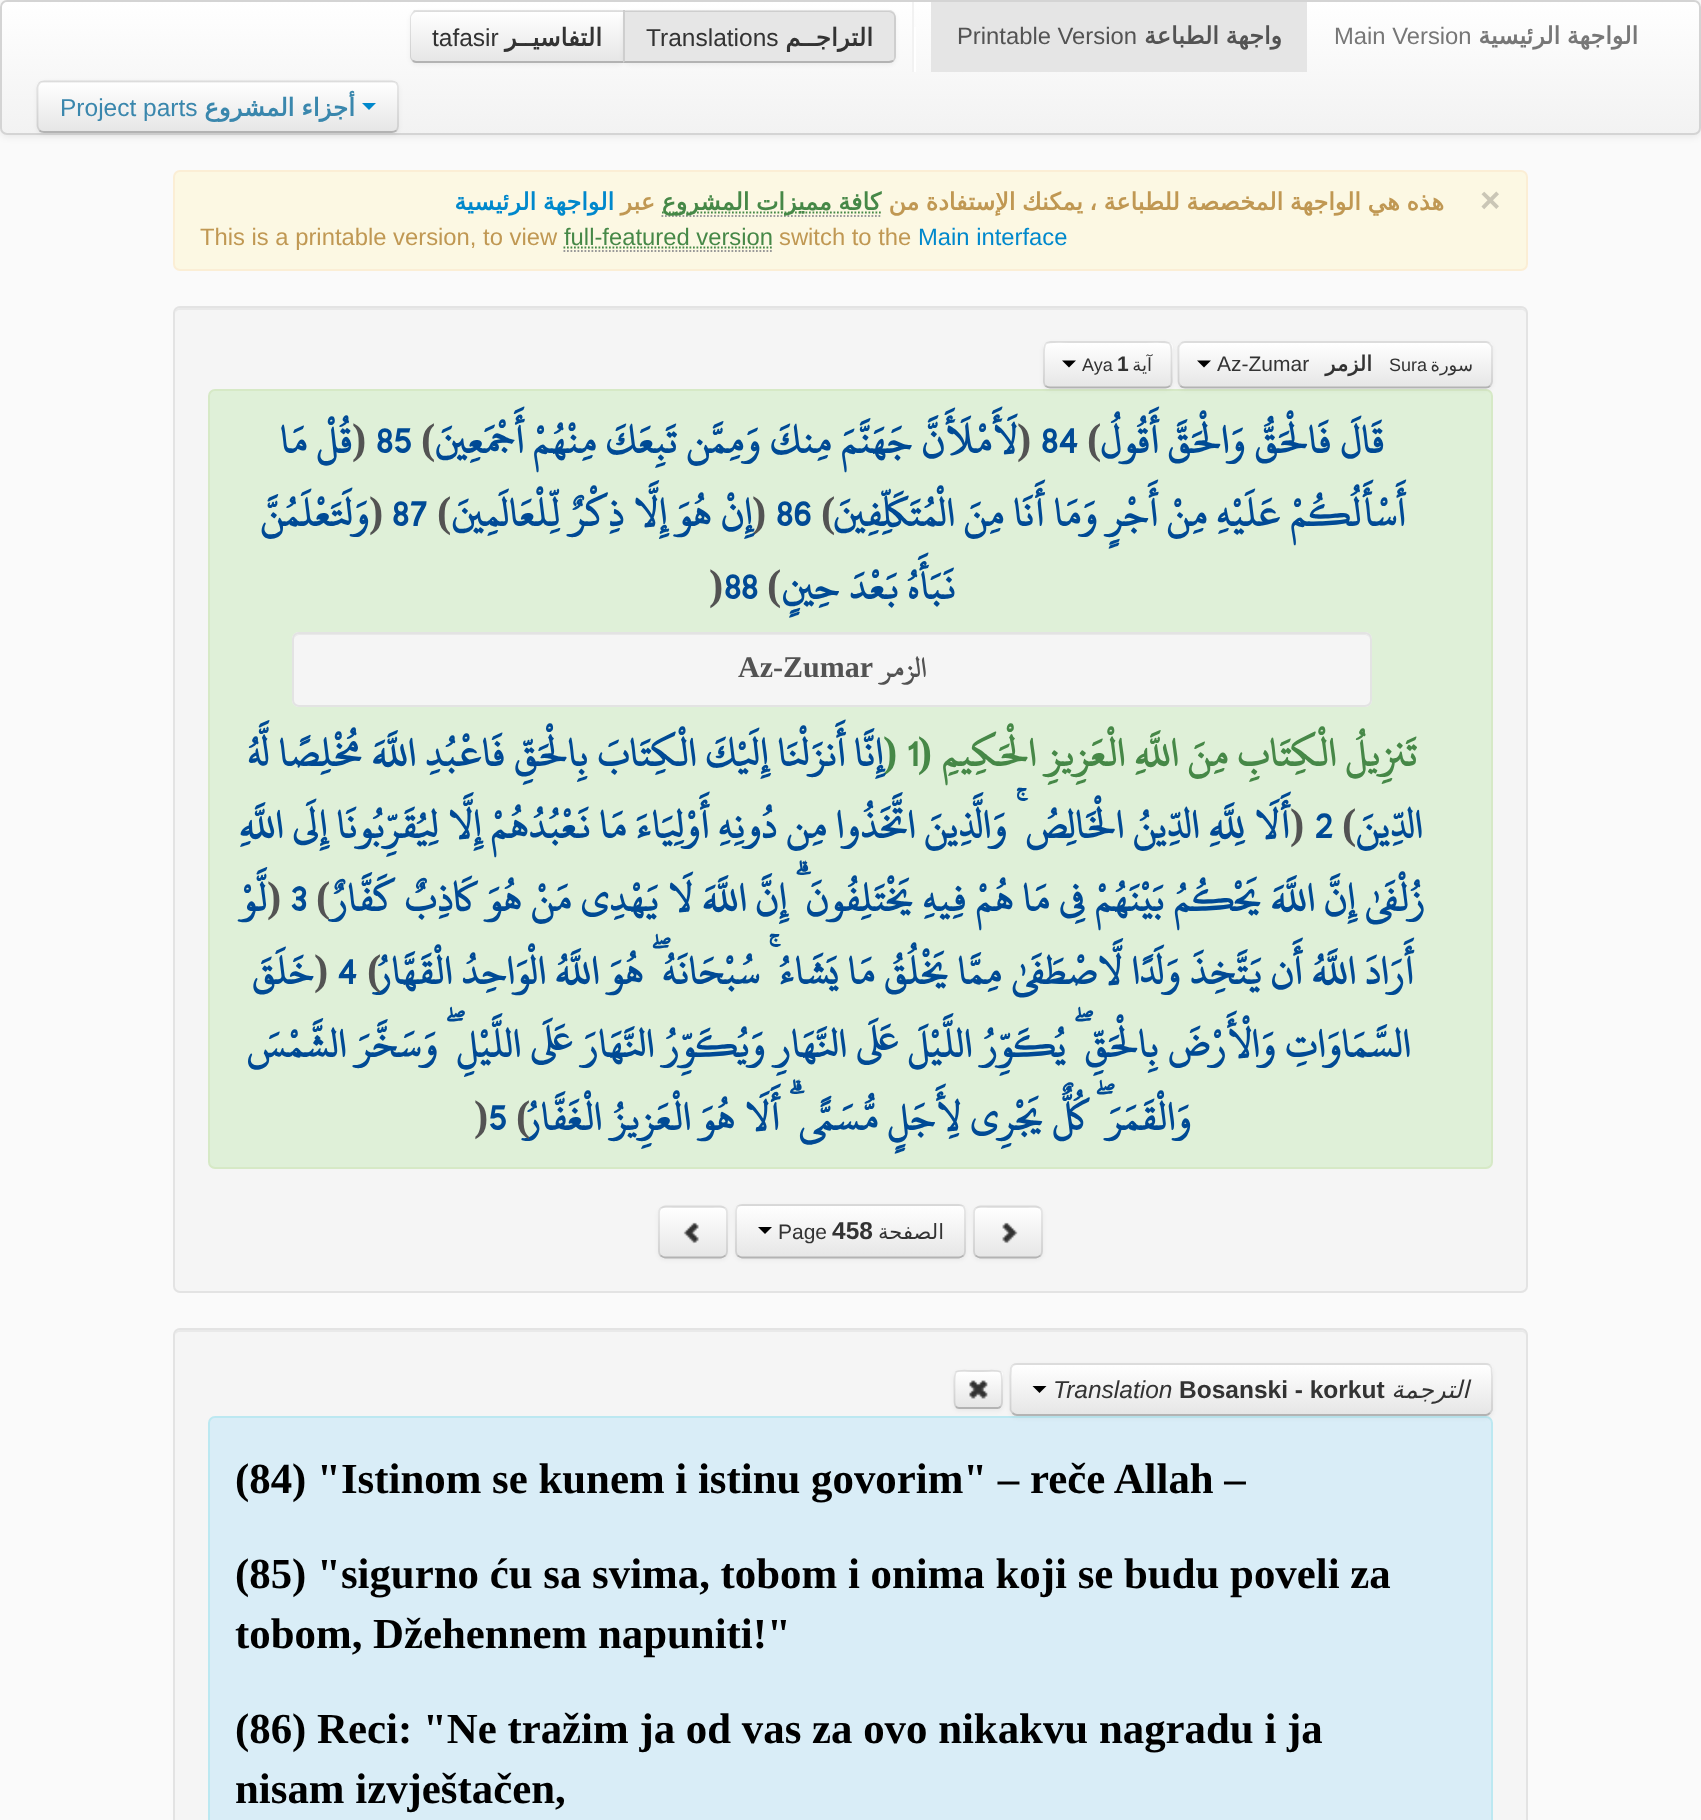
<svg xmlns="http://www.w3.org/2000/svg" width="1701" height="1820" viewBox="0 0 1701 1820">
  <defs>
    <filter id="blur1" x="-50%" y="-200%" width="200%" height="500%"><feGaussianBlur stdDeviation="3.5"/></filter>
    <clipPath id="clip1"><rect x="0" y="0" width="1701" height="135" rx="7"/></clipPath>
    <linearGradient id="g1" gradientUnits="userSpaceOnUse" x1="851" y1="1.7" x2="851" y2="133"><stop offset="0" stop-color="#ffffff"/><stop offset="1" stop-color="#f2f2f2"/></linearGradient>
    <filter id="blur2" x="-50%" y="-200%" width="200%" height="500%"><feGaussianBlur stdDeviation="2"/></filter>
    <clipPath id="clip2"><path d="M417 11H625V63H417C413 63 410 60 410 56V18C410 14 413 11 417 11Z"/></clipPath>
    <linearGradient id="g2" gradientUnits="userSpaceOnUse" x1="517" y1="12" x2="517" y2="61"><stop offset="0" stop-color="#ffffff"/><stop offset="1" stop-color="#e6e6e6"/></linearGradient>
    <clipPath id="clip3"><rect x="37" y="81" width="362" height="52" rx="7"/></clipPath>
    <linearGradient id="g3" gradientUnits="userSpaceOnUse" x1="218" y1="82" x2="218" y2="131"><stop offset="0" stop-color="#ffffff"/><stop offset="1" stop-color="#e6e6e6"/></linearGradient>
    <clipPath id="clip4"><rect x="1178" y="341" width="315" height="48" rx="7"/></clipPath>
    <linearGradient id="g4" gradientUnits="userSpaceOnUse" x1="1335" y1="343" x2="1335" y2="387"><stop offset="0" stop-color="#ffffff"/><stop offset="1" stop-color="#e6e6e6"/></linearGradient>
    <clipPath id="clip5"><rect x="1043" y="341" width="130" height="48" rx="7"/></clipPath>
    <linearGradient id="g5" gradientUnits="userSpaceOnUse" x1="1108" y1="343" x2="1108" y2="387"><stop offset="0" stop-color="#ffffff"/><stop offset="1" stop-color="#e6e6e6"/></linearGradient>
    <clipPath id="clip6"><rect x="973" y="1206" width="70" height="52" rx="7"/></clipPath>
    <linearGradient id="g6" gradientUnits="userSpaceOnUse" x1="1008" y1="1208" x2="1008" y2="1257"><stop offset="0" stop-color="#ffffff"/><stop offset="1" stop-color="#e6e6e6"/></linearGradient>
    <clipPath id="clip7"><rect x="735" y="1204" width="231" height="54" rx="7"/></clipPath>
    <linearGradient id="g7" gradientUnits="userSpaceOnUse" x1="851" y1="1206" x2="851" y2="1257"><stop offset="0" stop-color="#ffffff"/><stop offset="1" stop-color="#e6e6e6"/></linearGradient>
    <clipPath id="clip8"><rect x="658" y="1206" width="70" height="52" rx="7"/></clipPath>
    <linearGradient id="g8" gradientUnits="userSpaceOnUse" x1="693" y1="1208" x2="693" y2="1257"><stop offset="0" stop-color="#ffffff"/><stop offset="1" stop-color="#e6e6e6"/></linearGradient>
    <clipPath id="clip9"><rect x="1010" y="1363" width="483" height="53" rx="7"/></clipPath>
    <linearGradient id="g9" gradientUnits="userSpaceOnUse" x1="1251" y1="1365" x2="1251" y2="1414"><stop offset="0" stop-color="#ffffff"/><stop offset="1" stop-color="#e6e6e6"/></linearGradient>
    <clipPath id="clip10"><rect x="954" y="1370" width="49" height="39" rx="5"/></clipPath>
    <linearGradient id="g10" gradientUnits="userSpaceOnUse" x1="978" y1="1372" x2="978" y2="1407"><stop offset="0" stop-color="#ffffff"/><stop offset="1" stop-color="#e6e6e6"/></linearGradient>
  </defs>
  <rect width="100%" height="100%" fill="#fafafa"/>
  <rect x="0" y="2" width="1701" height="135" rx="7" fill="#000000" fill-opacity="0.07" filter="url(#blur1)"/>
  <g clip-path="url(#clip1)">
    <rect x="0" y="2" width="1701" height="131" fill="url(#g1)"/>
  </g>
  <rect x="1" y="1" width="1699" height="133" rx="6" fill="none" stroke="#d4d4d4" stroke-width="2"/>
  <text x="1638" y="44" word-spacing="-1" font-family="DejaVu Sans" font-size="23.8" font-weight="bold" direction="rtl" fill="#777777">الواجهة الرئيسية</text>
  <text x="1334" y="44" font-family="Liberation Sans" font-size="23.8" fill="#777777">Main Version</text>
  <rect x="931" y="2" width="376" height="70" fill="#e5e5e5"/>
  <text x="1282" y="44" word-spacing="-1" font-family="DejaVu Sans" font-size="23.8" font-weight="bold" direction="rtl" fill="#535353">واجهة الطباعة</text>
  <text x="957" y="44" font-family="Liberation Sans" font-size="23.8" fill="#535353">Printable Version</text>
  <rect x="914" y="27" width="2" height="45" fill="#ffffff"/>
  <rect x="912" y="2" width="2" height="70" fill="#f2f2f2"/>
  <rect x="410" y="12" width="215" height="53" rx="7" fill="#000000" fill-opacity="0.05" filter="url(#blur2)"/>
  <path d="M417 11H625V63H417C413 63 410 60 410 56V18C410 14 413 11 417 11Z" fill="#f5f5f5"/>
  <g clip-path="url(#clip2)">
    <rect x="410" y="12" width="213" height="49" fill="url(#g2)"/>
  </g>
  <path d="M416 12C415 12 414 13 413 14L412 13L414 10H625L623 12Z" fill="#000000" fill-opacity="0.1"/>
  <path d="M625 10L623 12V61L625 63Z" fill="#000000" fill-opacity="0.1"/>
  <path d="M625 63L623 61H416L413 60L412 61C413 62 414 63 416 63Z" fill="#b3b3b3"/>
  <rect x="623" y="12" width="273" height="53" rx="7" fill="#000000" fill-opacity="0.05" filter="url(#blur2)"/>
  <path d="M623 11H889C893 11 896 14 896 18V56C896 60 893 63 889 63H623Z" fill="#e6e6e6"/>
  <path d="M625 12L623 10H891L894 12L893 14C892 13 890 12 889 12Z" fill="#000000" fill-opacity="0.1"/>
  <path d="M896 56V18C896 16 895 14 894 12L893 14C894 15 894 16 894 18V56C894 58 894 59 893 60L894 61C895 60 896 58 896 56Z" fill="#000000" fill-opacity="0.1"/>
  <path d="M889 63C891 63 893 62 894 61L893 60C892 60 890 61 889 61H625L623 63Z" fill="#b3b3b3"/>
  <path d="M623 63L625 61V12L623 10Z" fill="#000000" fill-opacity="0.1"/>
  <text x="873" y="46" font-family="DejaVu Sans" font-size="24.5" font-weight="bold" direction="rtl" fill="#333333">التراجــم</text>
  <text x="646" y="46" font-family="Liberation Sans" font-size="24.5" fill="#333333">Translations</text>
  <path d="M412 61C411 60 410 58 410 56V18C410 16 411 14 412 13L413 14C412 15 411 16 411 18V56C411 58 412 59 413 60Z" fill="#000000" fill-opacity="0.1"/>
  <text x="602" y="46" font-family="DejaVu Sans" font-size="24.5" font-weight="bold" direction="rtl" fill="#333333">التفاسيــر</text>
  <text x="432" y="46" font-family="Liberation Sans" font-size="24.5" fill="#333333">tafasir</text>
  <rect x="37" y="82" width="362" height="53" rx="7" fill="#000000" fill-opacity="0.05" filter="url(#blur2)"/>
  <rect x="37" y="81" width="362" height="52" rx="7" fill="#f5f5f5"/>
  <g clip-path="url(#clip3)">
    <rect x="37" y="82" width="362" height="49" fill="url(#g3)"/>
  </g>
  <path d="M396.5 130.5C395 131.5 393.5 132 392 132H44C42 132 40.5 131.5 39.5 130.5" fill="none" stroke="#b3b3b3" stroke-width="1.8"/>
  <path d="M39.5 130.5C38.5 129 37.5 127.5 37.5 126V87.5C37.5 86 38.5 84.5 39.5 83C40.5 82 42 81.5 44 81.5H392C393.5 81.5 395 82 396.5 83C397.5 84.5 398 86 398 87.5V126C398 127.5 397.5 129 396.5 130.5" fill="none" stroke="#000000" stroke-opacity="0.1" stroke-width="1.8"/>
  <path d="M362 103H376L369 110Z" fill="#0088cc"/>
  <text x="355" y="116" word-spacing="-1" font-family="DejaVu Sans" font-size="24.5" font-weight="bold" direction="rtl" fill="#3a87ad">أجزاء المشروع</text>
  <text x="60" y="116" font-family="Liberation Sans" font-size="24.5" fill="#3a87ad">Project parts</text>
  <rect x="174" y="171" width="1353" height="99" rx="6" fill="#fcf8e3" stroke="#fbeed5" stroke-width="2"/>
  <text x="1480" y="212" font-family="Liberation Sans" font-size="35" font-weight="bold" fill="#cac6b6">×</text>
  <text x="1444" y="210" word-spacing="-1" font-family="DejaVu Sans" font-size="23.8" font-weight="bold" direction="rtl" fill="#c09853">هذه هي الواجهة المخصصة للطباعة ، يمكنك الإستفادة من</text>
  <path d="M661.5 216H882" fill="none" stroke="#999999" stroke-width="1.8" stroke-dasharray="1.75 1.75"/>
  <path d="M662 212.5H881.5" fill="none" stroke="#468847" stroke-width="1.8" stroke-dasharray="1.75 1.75"/>
  <text x="881" y="210" word-spacing="-1" font-family="DejaVu Sans" font-size="23.8" font-weight="bold" direction="rtl" fill="#468847">كافة مميزات المشروع</text>
  <text x="655" y="210" font-family="DejaVu Sans" font-size="23.8" font-weight="bold" direction="rtl" fill="#c09853">عبر</text>
  <text x="614" y="210" word-spacing="-1" font-family="DejaVu Sans" font-size="23.8" font-weight="bold" direction="rtl" fill="#0088cc">الواجهة الرئيسية</text>
  <text x="918" y="245" font-family="Liberation Sans" font-size="23.8" fill="#0088cc">Main interface</text>
  <text x="779" y="245" font-family="Liberation Sans" font-size="23.8" fill="#c09853">switch to the</text>
  <text x="564" y="245" font-family="Liberation Sans" font-size="23.8" fill="#468847">full-featured version</text>
  <path d="M563.5 251H772" fill="none" stroke="#999999" stroke-width="1.8" stroke-dasharray="1.75 1.75"/>
  <path d="M563.5 247.5H772.5" fill="none" stroke="#468847" stroke-width="1.8" stroke-dasharray="1.75 1.75"/>
  <text x="200" y="245" font-family="Liberation Sans" font-size="23.8" fill="#c09853">This is a printable version, to view</text>
  <rect x="173" y="306" width="1355" height="987" rx="7" fill="#f5f5f5"/>
  <path d="M180 310H1521C1524 310 1526 312 1526 315C1526 312 1525 308 1521 308H180C176 308 175 312 175 315C175 312 177 310 180 310Z" fill="#e9e9e9"/>
  <rect x="174" y="307" width="1353" height="985" rx="6" fill="none" stroke="#e3e3e3" stroke-width="2"/>
  <rect x="209" y="390" width="1283" height="778" rx="6" fill="#dff0d8" stroke="#d6e9c6" stroke-width="2"/>
  <rect x="1178" y="343" width="315" height="47" rx="7" fill="#000000" fill-opacity="0.05" filter="url(#blur2)"/>
  <rect x="1178" y="341" width="315" height="48" rx="7" fill="#f5f5f5"/>
  <g clip-path="url(#clip4)">
    <rect x="1178" y="343" width="315" height="44" fill="url(#g4)"/>
  </g>
  <path d="M1490 386C1489 387 1487.5 387.5 1486 387.5H1185C1183 387.5 1181.5 387 1180.5 386" fill="none" stroke="#b3b3b3" stroke-width="1.8"/>
  <path d="M1180.5 386C1179.5 384.5 1178.5 383 1178.5 381.5V348C1178.5 346.5 1179.5 345 1180.5 344C1181.5 343 1183 342 1185 342H1486C1487.5 342 1489 343 1490 344C1491 345 1492 346.5 1492 348V381.5C1492 383 1491 384.5 1490 386" fill="none" stroke="#000000" stroke-opacity="0.1" stroke-width="1.8"/>
  <text x="1473" y="371" font-family="DejaVu Sans" font-size="18" direction="rtl" fill="#333333">سورة</text>
  <text x="1389" y="371" font-family="Liberation Sans" font-size="18" fill="#333333">Sura</text>
  <text x="1372" y="371" font-family="DejaVu Sans" font-size="21" font-weight="bold" direction="rtl" fill="#333333">الزمر</text>
  <text x="1217" y="371" font-family="Liberation Sans" font-size="21" fill="#333333">Az-Zumar</text>
  <path d="M1197 360.5H1211L1204 367.5Z" fill="#000000"/>
  <rect x="1043" y="343" width="130" height="47" rx="7" fill="#000000" fill-opacity="0.05" filter="url(#blur2)"/>
  <rect x="1043" y="341" width="130" height="48" rx="7" fill="#f5f5f5"/>
  <g clip-path="url(#clip5)">
    <rect x="1043" y="343" width="130" height="44" fill="url(#g5)"/>
  </g>
  <path d="M1170 386C1168.5 387 1167 387.5 1165.5 387.5H1050C1048.5 387.5 1047 387 1045.5 386" fill="none" stroke="#b3b3b3" stroke-width="1.8"/>
  <path d="M1045.5 386C1043 383.5 1044 379 1044 376V365C1044 338.5 1041 342 1069 342H1146C1174.5 342 1171.5 338.5 1171.5 365V376C1171.5 379 1172.5 383.5 1170 386" fill="none" stroke="#000000" stroke-opacity="0.1" stroke-width="1.8"/>
  <text x="1152" y="371" font-family="DejaVu Sans" font-size="18" direction="rtl" fill="#333333">آية</text>
  <text x="1117" y="371" font-family="Liberation Sans" font-size="21" font-weight="bold" fill="#333333">1</text>
  <text x="1082" y="371" font-family="Liberation Sans" font-size="18" fill="#333333">Aya</text>
  <path d="M1062 360.5H1076L1069 367.5Z" fill="#000000"/>
  <text x="1384" y="453" font-family="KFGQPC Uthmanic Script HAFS" font-size="42.85" font-weight="bold" direction="rtl" fill="#004a95">قَالَ فَالْحَقُّ وَالْحَقَّ أَقُولُ</text>
  <text x="1087" y="453" font-family="Liberation Serif" font-size="42.85" font-weight="bold" fill="#535353">(</text>
  <text x="1041" y="453" font-family="KFGQPC Uthmanic Script HAFS" font-size="42.85" font-weight="bold" fill="#004a95">84</text>
  <text x="1017" y="453" font-family="Liberation Serif" font-size="42.85" font-weight="bold" fill="#535353">)</text>
  <text x="1017" y="453" font-family="KFGQPC Uthmanic Script HAFS" font-size="42.85" font-weight="bold" direction="rtl" fill="#004a95">لَأَمْلَأَنَّ جَهَنَّمَ مِنكَ وَمِمَّن تَبِعَكَ مِنْهُمْ أَجْمَعِينَ</text>
  <text x="421" y="453" font-family="Liberation Serif" font-size="42.85" font-weight="bold" fill="#535353">(</text>
  <text x="376" y="453" font-family="KFGQPC Uthmanic Script HAFS" font-size="42.85" font-weight="bold" fill="#004a95">85</text>
  <text x="352" y="453" font-family="Liberation Serif" font-size="42.85" font-weight="bold" fill="#535353">)</text>
  <text x="352" y="453" font-family="KFGQPC Uthmanic Script HAFS" font-size="42.85" font-weight="bold" direction="rtl" fill="#004a95">قُلْ مَا</text>
  <text x="1405" y="526" font-family="KFGQPC Uthmanic Script HAFS" font-size="42.85" font-weight="bold" direction="rtl" fill="#004a95">أَسْأَلُكُمْ عَلَيْهِ مِنْ أَجْرٍ وَمَا أَنَا مِنَ الْمُتَكَلِّفِينَ</text>
  <text x="821" y="526" font-family="Liberation Serif" font-size="42.85" font-weight="bold" fill="#535353">(</text>
  <text x="776" y="526" font-family="KFGQPC Uthmanic Script HAFS" font-size="42.85" font-weight="bold" fill="#004a95">86</text>
  <text x="752" y="526" font-family="Liberation Serif" font-size="42.85" font-weight="bold" fill="#535353">)</text>
  <text x="752" y="526" font-family="KFGQPC Uthmanic Script HAFS" font-size="42.85" font-weight="bold" direction="rtl" fill="#004a95">إِنْ هُوَ إِلَّا ذِكْرٌ لِّلْعَالَمِينَ</text>
  <text x="437" y="526" font-family="Liberation Serif" font-size="42.85" font-weight="bold" fill="#535353">(</text>
  <text x="392" y="526" font-family="KFGQPC Uthmanic Script HAFS" font-size="42.85" font-weight="bold" fill="#004a95">87</text>
  <text x="369" y="526" font-family="Liberation Serif" font-size="42.85" font-weight="bold" fill="#535353">)</text>
  <text x="369" y="526" font-family="KFGQPC Uthmanic Script HAFS" font-size="42.85" font-weight="bold" direction="rtl" fill="#004a95">وَلَتَعْلَمُنَّ</text>
  <text x="955" y="599" font-family="KFGQPC Uthmanic Script HAFS" font-size="42.85" font-weight="bold" direction="rtl" fill="#004a95">نَبَأَهُ بَعْدَ حِينٍ</text>
  <text x="767" y="599" font-family="Liberation Serif" font-size="42.85" font-weight="bold" fill="#535353">(</text>
  <text x="724" y="599" font-family="KFGQPC Uthmanic Script HAFS" font-size="42.85" font-weight="bold" fill="#004a95">88</text>
  <text x="709" y="599" font-family="Liberation Serif" font-size="42.85" font-weight="bold" fill="#535353">)</text>
  <rect x="292" y="632" width="1080" height="75" rx="7" fill="#f5f5f5"/>
  <path d="M299 635H1365C1368 635 1370 638 1370 640C1370 637 1368 634 1365 634H299C296 634 294 637 294 640C294 638 296 635 299 635Z" fill="#e9e9e9"/>
  <rect x="293" y="633" width="1078" height="73" rx="6" fill="none" stroke="#e3e3e3" stroke-width="2"/>
  <text x="926" y="677" font-family="KFGQPC Uthmanic Script HAFS" font-size="30" font-weight="bold" direction="rtl" fill="#535353">الزمر</text>
  <text x="738" y="677" font-family="Liberation Serif" font-size="30" font-weight="bold" fill="#535353">Az-Zumar</text>
  <text x="1417" y="766" font-family="KFGQPC Uthmanic Script HAFS" font-size="42.85" font-weight="bold" direction="rtl" fill="#468847">تَنزِيلُ الْكِتَابِ مِنَ اللَّهِ الْعَزِيزِ الْحَكِيمِ</text>
  <text x="932" y="766" font-family="Liberation Serif" font-size="42.85" font-weight="bold" direction="rtl" fill="#468847">(</text>
  <text x="907" y="766" font-family="KFGQPC Uthmanic Script HAFS" font-size="42.85" font-weight="bold" fill="#468847">1</text>
  <text x="883" y="766" font-family="Liberation Serif" font-size="42.85" font-weight="bold" fill="#468847">)</text>
  <text x="883" y="766" font-family="KFGQPC Uthmanic Script HAFS" font-size="42.85" font-weight="bold" direction="rtl" fill="#004a95">إِنَّا أَنزَلْنَا إِلَيْكَ الْكِتَابَ بِالْحَقِّ فَاعْبُدِ اللَّهَ مُخْلِصًا لَّهُ</text>
  <text x="1422" y="838" font-family="KFGQPC Uthmanic Script HAFS" font-size="42.85" font-weight="bold" direction="rtl" fill="#004a95">الدِّينَ</text>
  <text x="1342" y="838" font-family="Liberation Serif" font-size="42.85" font-weight="bold" fill="#535353">(</text>
  <text x="1314" y="838" font-family="KFGQPC Uthmanic Script HAFS" font-size="42.85" font-weight="bold" fill="#004a95">2</text>
  <text x="1290" y="838" font-family="Liberation Serif" font-size="42.85" font-weight="bold" fill="#535353">)</text>
  <text x="1290" y="838" font-family="KFGQPC Uthmanic Script HAFS" font-size="42.85" font-weight="bold" direction="rtl" fill="#004a95">أَلَا لِلَّهِ الدِّينُ الْخَالِصُ ۚ وَالَّذِينَ اتَّخَذُوا مِن دُونِهِ أَوْلِيَاءَ مَا نَعْبُدُهُمْ إِلَّا لِيُقَرِّبُونَا إِلَى اللَّهِ</text>
  <text x="1425" y="911" font-family="KFGQPC Uthmanic Script HAFS" font-size="42.85" font-weight="bold" direction="rtl" fill="#004a95">زُلْفَىٰ إِنَّ اللَّهَ يَحْكُمُ بَيْنَهُمْ فِي مَا هُمْ فِيهِ يَخْتَلِفُونَ ۗ إِنَّ اللَّهَ لَا يَهْدِي مَنْ هُوَ كَاذِبٌ كَفَّارٌ</text>
  <text x="316" y="911" font-family="Liberation Serif" font-size="42.85" font-weight="bold" fill="#535353">(</text>
  <text x="290" y="911" font-family="KFGQPC Uthmanic Script HAFS" font-size="42.85" font-weight="bold" fill="#004a95">3</text>
  <text x="267" y="911" font-family="Liberation Serif" font-size="42.85" font-weight="bold" fill="#535353">)</text>
  <text x="267" y="911" font-family="KFGQPC Uthmanic Script HAFS" font-size="42.85" font-weight="bold" direction="rtl" fill="#004a95">لَّوْ</text>
  <text x="1413" y="984" font-family="KFGQPC Uthmanic Script HAFS" font-size="42.85" font-weight="bold" direction="rtl" fill="#004a95">أَرَادَ اللَّهُ أَن يَتَّخِذَ وَلَدًا لَّاصْطَفَىٰ مِمَّا يَخْلُقُ مَا يَشَاءُ ۚ سُبْحَانَهُ ۖ هُوَ اللَّهُ الْوَاحِدُ الْقَهَّارُ</text>
  <text x="367" y="984" font-family="Liberation Serif" font-size="42.85" font-weight="bold" fill="#535353">(</text>
  <text x="337" y="984" font-family="KFGQPC Uthmanic Script HAFS" font-size="42.85" font-weight="bold" fill="#004a95">4</text>
  <text x="314" y="984" font-family="Liberation Serif" font-size="42.85" font-weight="bold" fill="#535353">)</text>
  <text x="314" y="984" font-family="KFGQPC Uthmanic Script HAFS" font-size="42.85" font-weight="bold" direction="rtl" fill="#004a95">خَلَقَ</text>
  <text x="1410" y="1057" font-family="KFGQPC Uthmanic Script HAFS" font-size="42.85" font-weight="bold" direction="rtl" fill="#004a95">السَّمَاوَاتِ وَالْأَرْضَ بِالْحَقِّ ۖ يُكَوِّرُ اللَّيْلَ عَلَى النَّهَارِ وَيُكَوِّرُ النَّهَارَ عَلَى اللَّيْلِ ۖ وَسَخَّرَ الشَّمْسَ</text>
  <text x="1191" y="1130" font-family="KFGQPC Uthmanic Script HAFS" font-size="42.85" font-weight="bold" direction="rtl" fill="#004a95">وَالْقَمَرَ ۖ كُلٌّ يَجْرِي لِأَجَلٍ مُّسَمًّى ۗ أَلَا هُوَ الْعَزِيزُ الْغَفَّارُ</text>
  <text x="516" y="1130" font-family="Liberation Serif" font-size="42.85" font-weight="bold" fill="#535353">(</text>
  <text x="488" y="1130" font-family="KFGQPC Uthmanic Script HAFS" font-size="42.85" font-weight="bold" fill="#004a95">5</text>
  <text x="474" y="1130" font-family="Liberation Serif" font-size="42.85" font-weight="bold" fill="#535353">)</text>
  <rect x="973" y="1208" width="70" height="52" rx="7" fill="#000000" fill-opacity="0.05" filter="url(#blur2)"/>
  <g clip-path="url(#clip6)">
    <rect x="973" y="1208" width="70" height="49" fill="url(#g6)"/>
  </g>
  <path d="M980 1209H1036C1039 1209 1041 1212 1041 1214C1041 1206 1033 1208 1027 1208H989C983 1208 975 1206 975 1214C975 1212 977 1209 980 1209Z" fill="#ffffff"/>
  <path d="M1040.5 1255.5C1039 1256.5 1037.5 1257.5 1036 1257.5H980C978.5 1257.5 977 1256.5 975.5 1255.5" fill="none" stroke="#b3b3b3" stroke-width="1.8"/>
  <path d="M975.5 1255.5C974.5 1254.5 974 1253 974 1251V1213C974 1211 974.5 1209.5 975.5 1208.5C977 1207.5 978.5 1206.5 980 1206.5H1036C1037.5 1206.5 1039 1207.5 1040.5 1208.5C1041.5 1209.5 1042 1211 1042 1213V1251C1042 1253 1041.5 1254.5 1040.5 1255.5" fill="none" stroke="#000000" stroke-opacity="0.1" stroke-width="1.8"/>
  <image x="1002" y="1222" width="16" height="22" href="img1.png"/>
  <rect x="735" y="1206" width="231" height="54" rx="7" fill="#000000" fill-opacity="0.05" filter="url(#blur2)"/>
  <g clip-path="url(#clip7)">
    <rect x="735" y="1206" width="231" height="51" fill="url(#g7)"/>
  </g>
  <path d="M963.5 1255.5C962 1256.5 960.5 1257.5 959 1257.5H742C740.5 1257.5 739 1256.5 737.5 1255.5" fill="none" stroke="#b3b3b3" stroke-width="1.8"/>
  <path d="M737.5 1255.5C736.5 1254.5 736 1253 736 1251V1211C736 1209.5 736.5 1208 737.5 1206.5C739 1205.5 740.5 1205 742 1205H959C960.5 1205 962 1205.5 963.5 1206.5C964.5 1208 965 1209.5 965 1211V1251C965 1253 964.5 1254.5 963.5 1255.5" fill="none" stroke="#000000" stroke-opacity="0.1" stroke-width="1.8"/>
  <text x="944" y="1239" font-family="DejaVu Sans" font-size="21" direction="rtl" fill="#333333">الصفحة</text>
  <text x="832" y="1239" font-family="Liberation Sans" font-size="24.5" font-weight="bold" fill="#333333">458</text>
  <text x="778" y="1239" font-family="Liberation Sans" font-size="21" fill="#333333">Page</text>
  <path d="M758 1227H772L765 1234Z" fill="#000000"/>
  <rect x="658" y="1208" width="70" height="52" rx="7" fill="#000000" fill-opacity="0.05" filter="url(#blur2)"/>
  <g clip-path="url(#clip8)">
    <rect x="658" y="1208" width="70" height="49" fill="url(#g8)"/>
  </g>
  <path d="M665 1209H721C724 1209 726 1212 726 1214C726 1206 718 1208 712 1208H674C668 1208 660 1206 660 1214C660 1212 662 1209 665 1209Z" fill="#ffffff"/>
  <path d="M725.5 1255.5C724 1256.5 722.5 1257.5 721 1257.5H665C663.5 1257.5 662 1256.5 660.5 1255.5" fill="none" stroke="#b3b3b3" stroke-width="1.8"/>
  <path d="M660.5 1255.5C659.5 1254.5 659 1253 659 1251V1213C659 1211 659.5 1209.5 660.5 1208.5C662 1207.5 663.5 1206.5 665 1206.5H721C722.5 1206.5 724 1207.5 725.5 1208.5C726.5 1209.5 727 1211 727 1213V1251C727 1253 726.5 1254.5 725.5 1255.5" fill="none" stroke="#000000" stroke-opacity="0.1" stroke-width="1.8"/>
  <image x="683" y="1222" width="16" height="22" href="img2.png"/>
  <rect x="173" y="1328" width="1355" height="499" rx="7" fill="#f5f5f5"/>
  <path d="M180 1332H1521C1524 1332 1526 1334 1526 1337C1526 1334 1525 1330 1521 1330H180C176 1330 175 1334 175 1337C175 1334 177 1332 180 1332Z" fill="#e9e9e9"/>
  <rect x="174" y="1329" width="1353" height="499" rx="6" fill="none" stroke="#e3e3e3" stroke-width="2"/>
  <rect x="209" y="1417" width="1283" height="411" rx="6" fill="#d9edf7" stroke="#bce8f1" stroke-width="2"/>
  <rect x="1010" y="1365" width="483" height="53" rx="7" fill="#000000" fill-opacity="0.05" filter="url(#blur2)"/>
  <rect x="1010" y="1363" width="483" height="53" rx="7" fill="#f5f5f5"/>
  <g clip-path="url(#clip9)">
    <rect x="1010" y="1365" width="483" height="49" fill="url(#g9)"/>
  </g>
  <path d="M1490 1413C1489 1414 1487.5 1415 1486 1415H1017C1015 1415 1013.5 1414 1012.5 1413" fill="none" stroke="#b3b3b3" stroke-width="1.8"/>
  <rect x="954" y="1372" width="49" height="39" rx="5" fill="#000000" fill-opacity="0.05" filter="url(#blur2)"/>
  <path d="M1012.5 1413L1010.5 1410V1376.5L1011 1368C1012 1365.5 1014.5 1364 1017 1364H1486C1488 1364 1490.5 1365.5 1491.5 1368L1492 1376.5V1410L1490 1413" fill="none" stroke="#000000" stroke-opacity="0.1" stroke-width="1.8"/>
  <text x="1469" y="1398" font-family="DejaVu Sans" font-size="24.5" font-style="italic" direction="rtl" fill="#333333">الترجمة</text>
  <text x="1179" y="1398" font-family="Liberation Sans" font-size="24.5" font-weight="bold" fill="#333333">Bosanski - korkut</text>
  <text x="1053" y="1398" font-family="Liberation Sans" font-size="24.5" font-style="italic" fill="#333333">Translation</text>
  <path d="M1032.5 1386H1046.5L1039.5 1393Z" fill="#000000"/>
  <rect x="954" y="1370" width="49" height="39" rx="5" fill="#f5f5f5"/>
  <g clip-path="url(#clip10)">
    <rect x="954" y="1372" width="49" height="35" fill="url(#g10)"/>
  </g>
  <path d="M1000.5 1406.5C1000 1407.5 998.5 1408 997.5 1408H959C958 1408 956.5 1407.5 956 1406.5" fill="none" stroke="#b3b3b3" stroke-width="1.8"/>
  <path d="M956 1406.5C954 1404.5 954.5 1401 954.5 1399V1389.5C954.5 1366.5 952.5 1371 978 1371C1004 1371 1002 1366.5 1002 1389.5V1399C1002 1401 1002.5 1404.5 1000.5 1406.5" fill="none" stroke="#000000" stroke-opacity="0.1" stroke-width="1.8"/>
  <image x="969" y="1380" width="19" height="19" href="img3.png"/>
  <text x="235" y="1493" font-family="Liberation Serif" font-size="42.85" font-weight="bold" fill="#000000">(84) "Istinom se kunem i istinu govorim" – reče Allah –</text>
  <text x="235" y="1588" font-family="Liberation Serif" font-size="42.85" font-weight="bold" fill="#000000">(85) "sigurno ću sa svima, tobom i onima koji se budu poveli za</text>
  <text x="235" y="1648" font-family="Liberation Serif" font-size="42.85" font-weight="bold" fill="#000000">tobom, Džehennem napuniti!"</text>
  <text x="235" y="1743" font-family="Liberation Serif" font-size="42.85" font-weight="bold" fill="#000000">(86) Reci: "Ne tražim ja od vas za ovo nikakvu nagradu i ja</text>
  <text x="235" y="1803" font-family="Liberation Serif" font-size="42.85" font-weight="bold" fill="#000000">nisam izvještačen,</text>
</svg>
